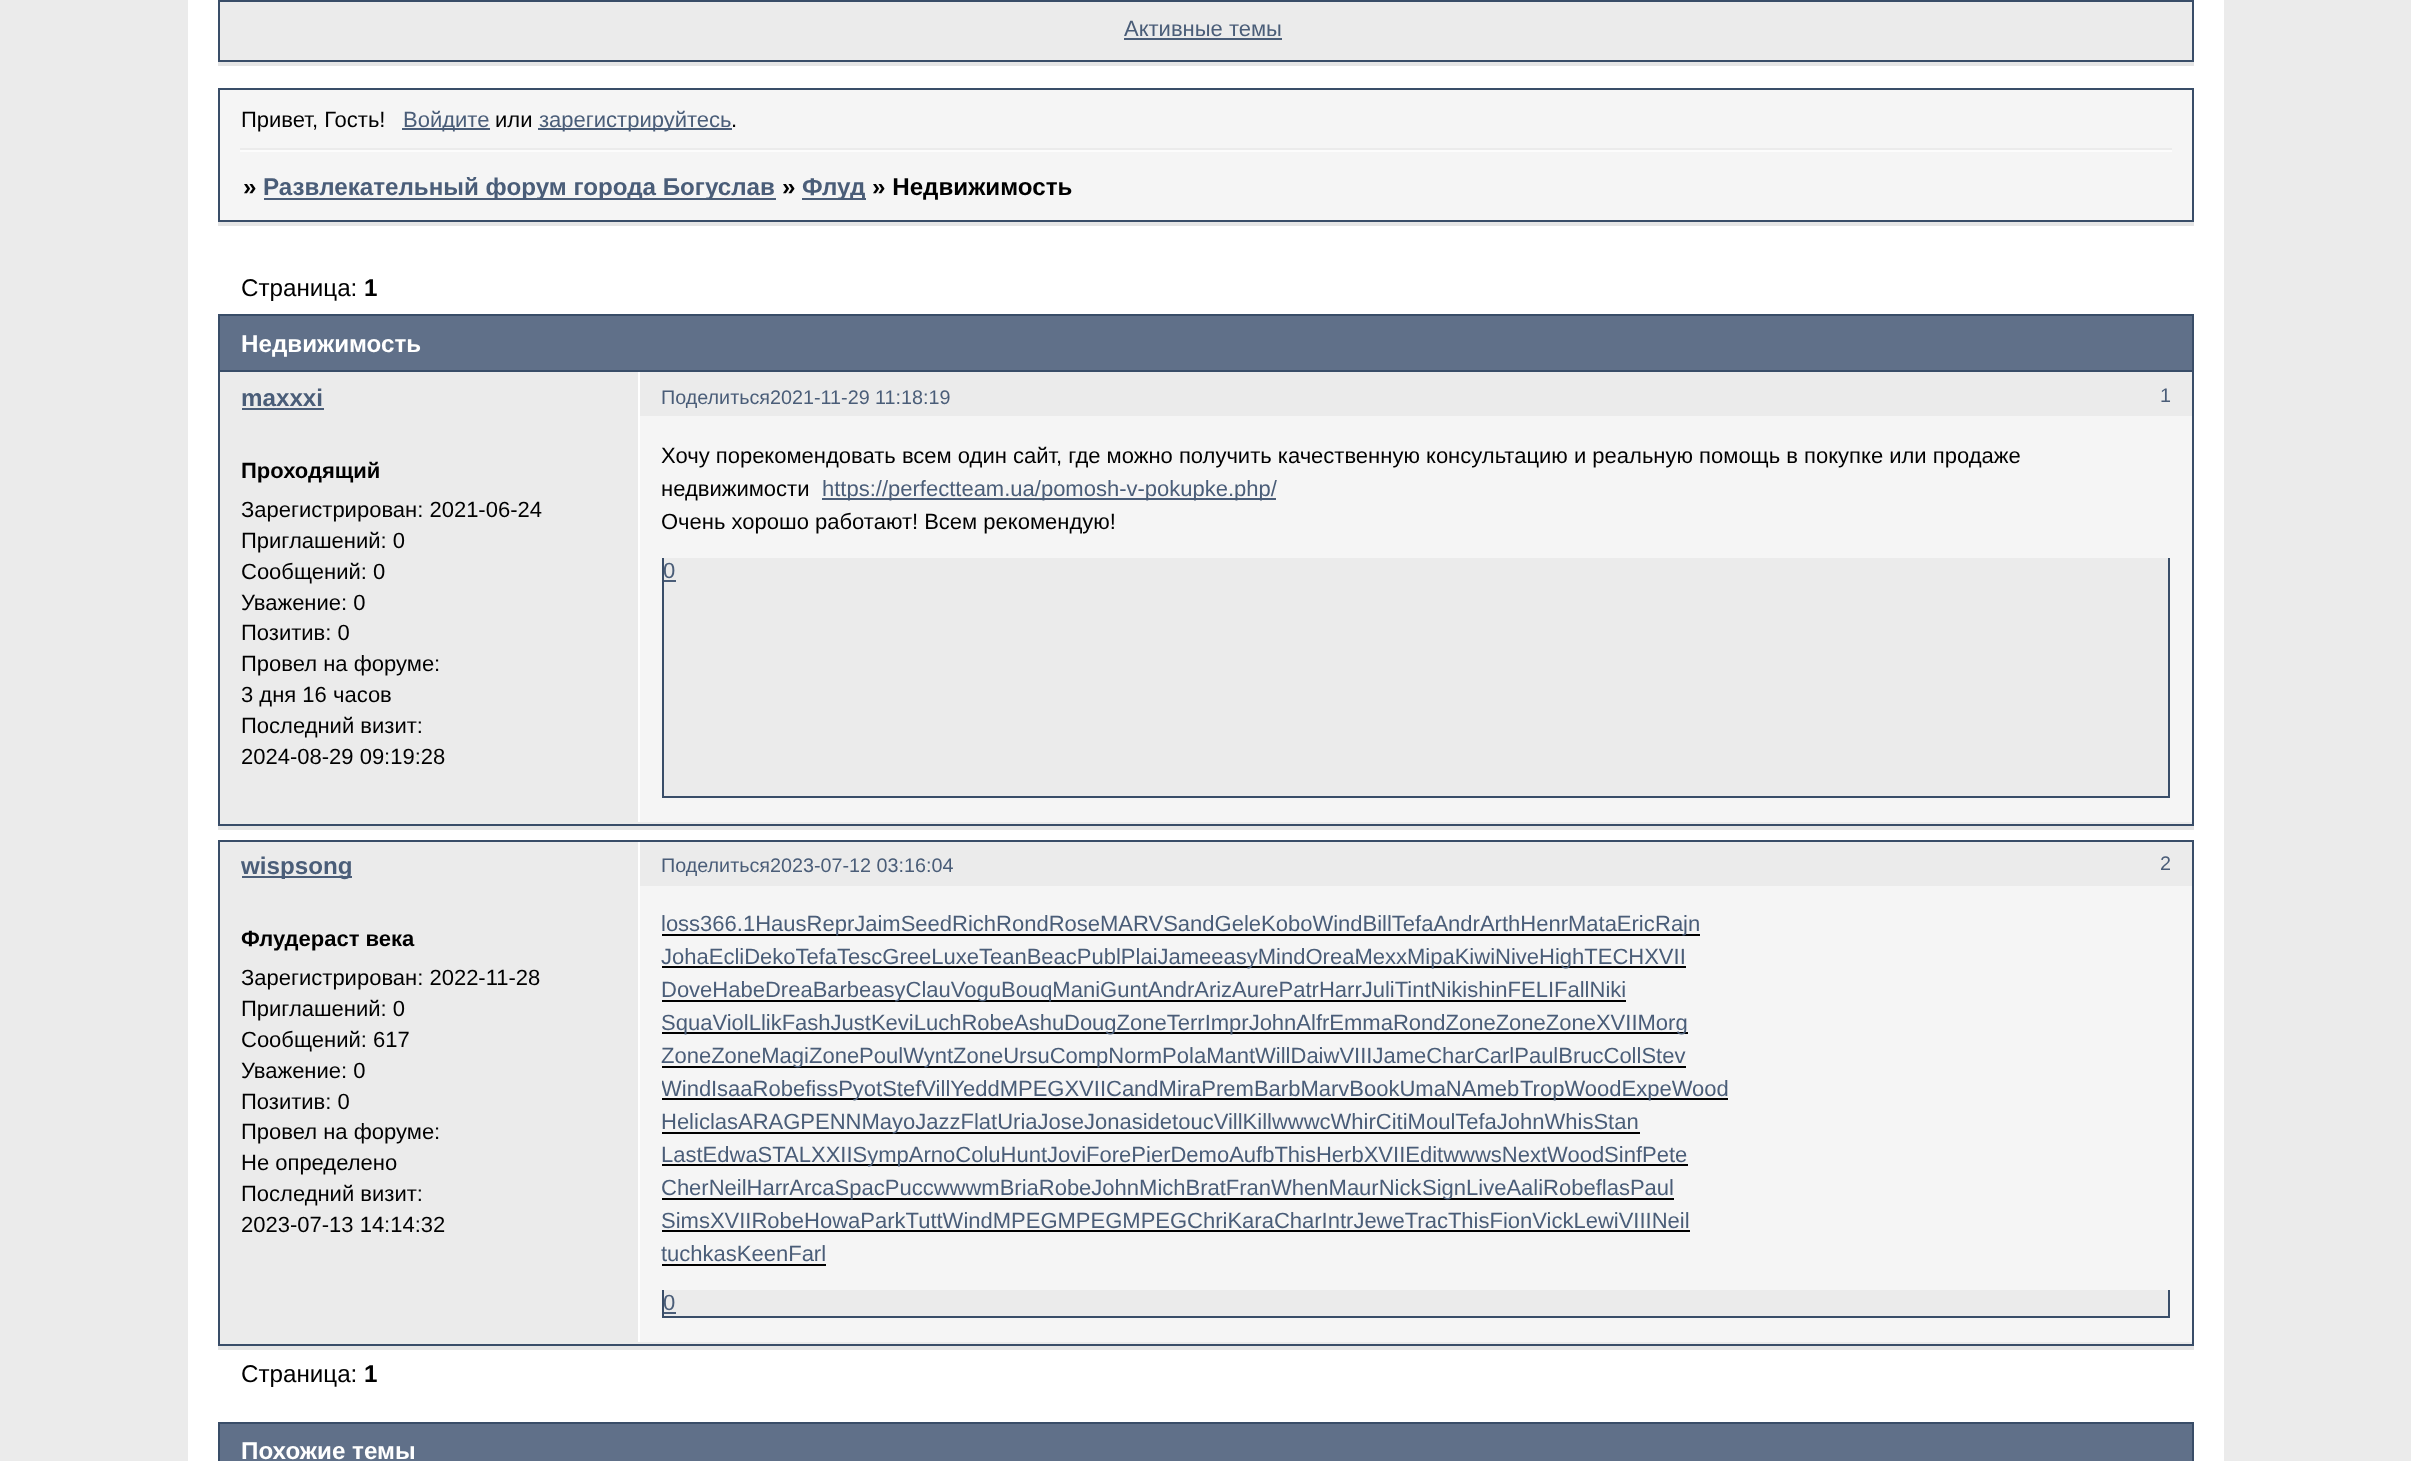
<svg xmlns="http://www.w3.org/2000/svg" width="2411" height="1461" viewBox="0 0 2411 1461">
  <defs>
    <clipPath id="clip1"><rect x="662" y="908" width="1508" height="384"/></clipPath>
  </defs>
  <rect width="100%" height="100%" fill="#ebebeb"/>
  <rect x="188" y="0" width="2036" height="1461" fill="#ffffff"/>
  <rect x="218" y="62" width="1976" height="4" fill="#e5e5e5"/>
  <rect x="219" y="1" width="1974" height="60" fill="#ebebeb" stroke="#394d68" stroke-width="2"/>
  <text x="1124" y="36" font-family="Liberation Sans" font-size="22" fill="#4a5d78">Активные темы</text>
  <rect x="1124" y="38" width="158" height="2" fill="#4a5d78"/>
  <rect x="220" y="90" width="1972" height="130" fill="#f5f5f5"/>
  <rect x="218" y="88" width="1976" height="2" fill="#394d68"/>
  <rect x="2192" y="88" width="2" height="134" fill="#394d68"/>
  <rect x="218" y="88" width="2" height="64" fill="#394d68"/>
  <text x="241" y="127" font-family="Liberation Sans" font-size="22" fill="#000000">Привет, Гость!</text>
  <rect x="402" y="128" width="88" height="2" fill="#4a5d78"/>
  <text x="403" y="127" font-family="Liberation Sans" font-size="22" fill="#4a5d78">Войдите</text>
  <text x="495" y="127" font-family="Liberation Sans" font-size="22" fill="#000000">или</text>
  <rect x="538" y="128" width="194" height="2" fill="#4a5d78"/>
  <text x="539" y="127" font-family="Liberation Sans" font-size="22" fill="#4a5d78">зарегистрируйтесь</text>
  <text x="731" y="127" font-family="Liberation Sans" font-size="22" fill="#000000">.</text>
  <rect x="240" y="148" width="1932" height="2" fill="#ebebeb"/>
  <rect x="240" y="150" width="1932" height="2" fill="#fcfcfc"/>
  <rect x="218" y="222" width="1976" height="4" fill="#e5e5e5"/>
  <rect x="218" y="220" width="1976" height="2" fill="#394d68"/>
  <rect x="218" y="148" width="2" height="74" fill="#394d68"/>
  <text x="243" y="195" font-family="Liberation Sans" font-size="24.2" font-weight="bold" fill="#000000">»</text>
  <rect x="264" y="198" width="512" height="2" fill="#4a5d78"/>
  <text x="263" y="195" font-family="Liberation Sans" font-size="24.2" font-weight="bold" fill="#4a5d78">Развлекательный форум города Богуслав</text>
  <text x="782" y="195" font-family="Liberation Sans" font-size="24.2" font-weight="bold" fill="#000000">»</text>
  <rect x="802" y="198" width="64" height="2" fill="#4a5d78"/>
  <text x="802" y="195" font-family="Liberation Sans" font-size="24.2" font-weight="bold" fill="#4a5d78">Флуд</text>
  <text x="872" y="195" font-family="Liberation Sans" font-size="24.2" font-weight="bold" fill="#000000">» Недвижимость</text>
  <text x="241" y="296" font-family="Liberation Sans" font-size="24.2" fill="#000000">Страница:</text>
  <text x="364" y="296" font-family="Liberation Sans" font-size="24.2" font-weight="bold" fill="#000000">1</text>
  <rect x="220" y="316" width="1972" height="54" fill="#607089"/>
  <rect x="218" y="314" width="1976" height="2" fill="#394d68"/>
  <rect x="2192" y="314" width="2" height="56" fill="#394d68"/>
  <rect x="218" y="314" width="2" height="56" fill="#394d68"/>
  <text x="241" y="352" font-family="Liberation Sans" font-size="24.2" font-weight="bold" fill="#ffffff">Недвижимость</text>
  <rect x="218" y="826" width="1976" height="4" fill="#e5e5e5"/>
  <rect x="220" y="372" width="1972" height="44" fill="#ebebeb"/>
  <rect x="638" y="372" width="2" height="46" fill="#ffffff"/>
  <rect x="220" y="416" width="1972" height="408" fill="#ebebeb"/>
  <rect x="218" y="370" width="1976" height="2" fill="#394d68"/>
  <rect x="2192" y="370" width="2" height="456" fill="#394d68"/>
  <rect x="218" y="824" width="1976" height="2" fill="#394d68"/>
  <rect x="218" y="370" width="2" height="48" fill="#394d68"/>
  <rect x="218" y="416" width="2" height="410" fill="#394d68"/>
  <text x="241" y="406" font-family="Liberation Sans" font-size="24.2" font-weight="bold" fill="#4a5d78">maxxxi</text>
  <rect x="242" y="408" width="82" height="2" fill="#4a5d78"/>
  <text x="241" y="478" font-family="Liberation Sans" font-size="22" font-weight="bold" fill="#000000">Проходящий</text>
  <text x="241" y="517" font-family="Liberation Sans" font-size="22" fill="#000000">Зарегистрирован: 2021-06-24</text>
  <text x="241" y="548" font-family="Liberation Sans" font-size="22" fill="#000000">Приглашений: 0</text>
  <text x="241" y="579" font-family="Liberation Sans" font-size="22" fill="#000000">Сообщений: 0</text>
  <text x="241" y="610" font-family="Liberation Sans" font-size="22" fill="#000000">Уважение: 0</text>
  <text x="241" y="640" font-family="Liberation Sans" font-size="22" fill="#000000">Позитив: 0</text>
  <text x="241" y="671" font-family="Liberation Sans" font-size="22" fill="#000000">Провел на форуме:</text>
  <text x="241" y="702" font-family="Liberation Sans" font-size="22" fill="#000000">3 дня 16 часов</text>
  <text x="241" y="733" font-family="Liberation Sans" font-size="22" fill="#000000">Последний визит:</text>
  <text x="241" y="764" font-family="Liberation Sans" font-size="22" fill="#000000">2024-08-29 09:19:28</text>
  <rect x="640" y="416" width="1552" height="406" fill="#f5f5f5"/>
  <rect x="638" y="416" width="2" height="406" fill="#ffffff"/>
  <text x="661" y="463" font-family="Liberation Sans" font-size="22" fill="#000000">Хочу порекомендовать всем один сайт, где можно получить качественную консультацию и реальную помощь в покупке или продаже</text>
  <text x="661" y="496" font-family="Liberation Sans" font-size="22" fill="#000000">недвижимости</text>
  <rect x="822" y="498" width="454" height="2" fill="#4a5d78"/>
  <text x="822" y="496" font-family="Liberation Sans" font-size="22" fill="#4a5d78">https://perfectteam.ua/pomosh-v-pokupke.php/</text>
  <text x="661" y="529" font-family="Liberation Sans" font-size="22" fill="#000000">Очень хорошо работают! Всем рекомендую!</text>
  <rect x="664" y="558" width="1504" height="238" fill="#ebebeb"/>
  <rect x="2168" y="558" width="2" height="240" fill="#394d68"/>
  <rect x="662" y="796" width="1508" height="2" fill="#394d68"/>
  <rect x="662" y="558" width="2" height="240" fill="#394d68"/>
  <text x="663" y="578" font-family="Liberation Sans" font-size="22" fill="#4a5d78">0</text>
  <rect x="664" y="580" width="12" height="2" fill="#4a5d78"/>
  <text x="661" y="404" font-family="Liberation Sans" font-size="19.75" fill="#4a5d78">Поделиться2021-11-29 11:18:19</text>
  <text x="2160" y="402" font-family="Liberation Sans" font-size="19.75" fill="#4a5d78">1</text>
  <rect x="218" y="1346" width="1976" height="4" fill="#e5e5e5"/>
  <rect x="220" y="842" width="1972" height="44" fill="#ebebeb"/>
  <rect x="638" y="842" width="2" height="46" fill="#ffffff"/>
  <rect x="220" y="886" width="1972" height="458" fill="#ebebeb"/>
  <rect x="218" y="840" width="1976" height="2" fill="#394d68"/>
  <rect x="2192" y="840" width="2" height="506" fill="#394d68"/>
  <rect x="218" y="1344" width="1976" height="2" fill="#394d68"/>
  <rect x="218" y="840" width="2" height="48" fill="#394d68"/>
  <rect x="218" y="886" width="2" height="460" fill="#394d68"/>
  <rect x="242" y="876" width="110" height="2" fill="#4a5d78"/>
  <text x="241" y="874" font-family="Liberation Sans" font-size="24.2" font-weight="bold" fill="#4a5d78">wispsong</text>
  <text x="241" y="946" font-family="Liberation Sans" font-size="22" font-weight="bold" fill="#000000">Флудераст века</text>
  <text x="241" y="985" font-family="Liberation Sans" font-size="22" fill="#000000">Зарегистрирован: 2022-11-28</text>
  <text x="241" y="1016" font-family="Liberation Sans" font-size="22" fill="#000000">Приглашений: 0</text>
  <text x="241" y="1047" font-family="Liberation Sans" font-size="22" fill="#000000">Сообщений: 617</text>
  <text x="241" y="1078" font-family="Liberation Sans" font-size="22" fill="#000000">Уважение: 0</text>
  <text x="241" y="1109" font-family="Liberation Sans" font-size="22" fill="#000000">Позитив: 0</text>
  <text x="241" y="1139" font-family="Liberation Sans" font-size="22" fill="#000000">Провел на форуме:</text>
  <text x="241" y="1170" font-family="Liberation Sans" font-size="22" fill="#000000">Не определено</text>
  <text x="241" y="1201" font-family="Liberation Sans" font-size="22" fill="#000000">Последний визит:</text>
  <text x="241" y="1232" font-family="Liberation Sans" font-size="22" fill="#000000">2023-07-13 14:14:32</text>
  <rect x="640" y="886" width="1552" height="456" fill="#f5f5f5"/>
  <rect x="638" y="886" width="2" height="456" fill="#ffffff"/>
  <rect x="662" y="934" width="192" height="2" fill="#000000"/>
  <text x="661" y="931" font-family="Liberation Sans" font-size="22" fill="#4a5d78">loss366.1HausReprJaimSeedRichRondRoseMARVSandGeleKoboWindBillTefaAndrArthHenrMataEric</text>
  <rect x="854" y="934" width="846" height="2" fill="#000000"/>
  <text x="1655" y="931" font-family="Liberation Sans" font-size="22" fill="#4a5d78">Rajn</text>
  <rect x="662" y="966" width="596" height="2" fill="#000000"/>
  <text x="661" y="964" font-family="Liberation Sans" font-size="22" fill="#4a5d78">JohaEcliDekoTefaTescGreeLuxeTeanBeacPublPlaiJameeasyMindOreaMexx</text>
  <rect x="1258" y="966" width="428" height="2" fill="#000000"/>
  <text x="1407" y="964" font-family="Liberation Sans" font-size="22" fill="#4a5d78">MipaKiwiNiveHighTECHXVII</text>
  <rect x="662" y="1000" width="532" height="2" fill="#000000"/>
  <text x="661" y="997" font-family="Liberation Sans" font-size="22" fill="#4a5d78">DoveHabeDreaBarbeasyClauVoguBouqManiGuntAndrArizAurePatrHarrJuliTintNikishinFELIFallNiki</text>
  <rect x="1194" y="1000" width="432" height="2" fill="#000000"/>
  <rect x="662" y="1032" width="50" height="2" fill="#000000"/>
  <text x="661" y="1030" font-family="Liberation Sans" font-size="22" fill="#4a5d78">SquaViolLlikFashJustKeviLuchRobeAshu</text>
  <rect x="712" y="1032" width="976" height="2" fill="#000000"/>
  <text x="1064" y="1030" font-family="Liberation Sans" font-size="22" fill="#4a5d78">DougZoneTerrImprJohnAlfrEmmaRondZoneZoneZoneXVIIMorg</text>
  <rect x="662" y="1066" width="544" height="2" fill="#000000"/>
  <text x="661" y="1063" font-family="Liberation Sans" font-size="22" fill="#4a5d78">ZoneZoneMagiZonePoulWyntZoneUrsuCompNormPolaMantWillDaiwVIIIJameCharCarlPaulBrucCollStev</text>
  <rect x="1206" y="1066" width="480" height="2" fill="#000000"/>
  <g clip-path="url(#clip1)">
    <text x="661" y="1096" font-family="Liberation Sans" font-size="22" fill="#4a5d78">Wind</text>
  </g>
  <rect x="662" y="1098" width="220" height="2" fill="#000000"/>
  <text x="711" y="1096" font-family="Liberation Sans" font-size="22" fill="#4a5d78">IsaaRobefissPyotStefVillYeddMPEGXVIICandMiraPremBarbMarvBookUmaNAmeb</text>
  <rect x="882" y="1098" width="846" height="2" fill="#000000"/>
  <text x="1520" y="1096" font-family="Liberation Sans" font-size="22" fill="#4a5d78">TropWoodExpeWood</text>
  <rect x="662" y="1132" width="668" height="2" fill="#000000"/>
  <text x="661" y="1129" font-family="Liberation Sans" font-size="22" fill="#4a5d78">HeliclasARAGPENNMayoJazzFlatUriaJoseJonasidetoucVillKillwwwcWhirCitiMoulTefaJohnWhisStan</text>
  <rect x="1330" y="1132" width="310" height="2" fill="#000000"/>
  <rect x="662" y="1164" width="508" height="2" fill="#000000"/>
  <text x="661" y="1162" font-family="Liberation Sans" font-size="22" fill="#4a5d78">LastEdwaSTALXXIISympArnoColuHuntJoviForePierDemoAufbThisHerbXVIIEditwwwsNextWoodSinfPete</text>
  <rect x="1170" y="1164" width="518" height="2" fill="#000000"/>
  <rect x="662" y="1198" width="222" height="2" fill="#000000"/>
  <text x="661" y="1195" font-family="Liberation Sans" font-size="22" fill="#4a5d78">CherNeilHarrArcaSpacPuccwwwmBriaRobeJohnMichBratFranWhenMaurNick</text>
  <rect x="884" y="1198" width="790" height="2" fill="#000000"/>
  <text x="1422" y="1195" font-family="Liberation Sans" font-size="22" fill="#4a5d78">SignLiveAaliRobeflasPaul</text>
  <text x="661" y="1228" font-family="Liberation Sans" font-size="22" fill="#4a5d78">SimsXVIIRobeHowaParkTuttWindMPEGMPEGMPEGChriKaraCharIntrJeweTracThisFionVickLewiVIIINeil</text>
  <rect x="662" y="1230" width="1028" height="2" fill="#000000"/>
  <text x="661" y="1261" font-family="Liberation Sans" font-size="22" fill="#4a5d78">tuchkasKeenFarl</text>
  <rect x="662" y="1264" width="164" height="2" fill="#000000"/>
  <rect x="664" y="1290" width="1504" height="26" fill="#ebebeb"/>
  <rect x="2168" y="1290" width="2" height="28" fill="#394d68"/>
  <rect x="662" y="1316" width="1508" height="2" fill="#394d68"/>
  <rect x="662" y="1290" width="2" height="28" fill="#394d68"/>
  <text x="663" y="1310" font-family="Liberation Sans" font-size="22" fill="#4a5d78">0</text>
  <rect x="664" y="1312" width="12" height="2" fill="#4a5d78"/>
  <text x="661" y="872" font-family="Liberation Sans" font-size="19.75" fill="#4a5d78">Поделиться2023-07-12 03:16:04</text>
  <text x="2160" y="870" font-family="Liberation Sans" font-size="19.75" fill="#4a5d78">2</text>
  <text x="241" y="1382" font-family="Liberation Sans" font-size="24.2" fill="#000000">Страница:</text>
  <text x="364" y="1382" font-family="Liberation Sans" font-size="24.2" font-weight="bold" fill="#000000">1</text>
  <rect x="220" y="1424" width="1972" height="37" fill="#607089"/>
  <rect x="218" y="1422" width="1976" height="2" fill="#394d68"/>
  <rect x="2192" y="1422" width="2" height="39" fill="#394d68"/>
  <rect x="218" y="1422" width="2" height="39" fill="#394d68"/>
  <text x="241" y="1459" font-family="Liberation Sans" font-size="24.2" font-weight="bold" fill="#ffffff">Похожие темы</text>
</svg>
